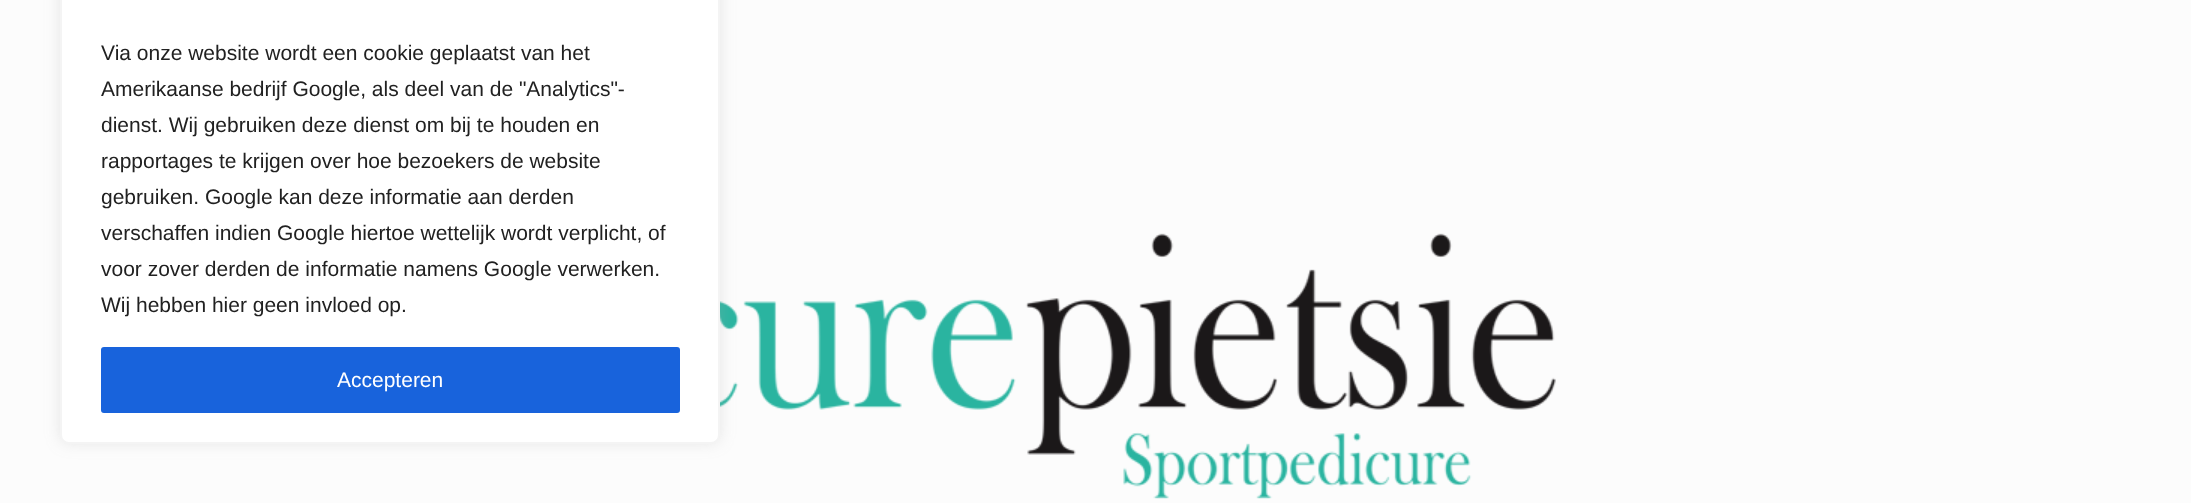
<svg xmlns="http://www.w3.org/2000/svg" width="2191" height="503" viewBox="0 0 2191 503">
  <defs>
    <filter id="blur1" x="-50%" y="-200%" width="200%" height="500%"><feGaussianBlur stdDeviation="7.5"/></filter>
  </defs>
  <rect width="100%" height="100%" fill="#fcfcfc"/>
  <image x="720" y="233" width="836" height="266" href="img1.png"/>
  <rect x="60" y="-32" width="660" height="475" rx="9" fill="#acabab" fill-opacity="0.3" filter="url(#blur1)"/>
  <rect x="61" y="-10" width="658" height="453" rx="8" fill="#ffffff" stroke="#f4f4f4" stroke-width="2"/>
  <text x="101" y="60" font-family="Liberation Sans" font-size="21" fill="#212121">Via onze website wordt een cookie geplaatst van het</text>
  <text x="101" y="96" font-family="Liberation Sans" font-size="21" fill="#212121">Amerikaanse bedrijf Google, als deel van de "Analytics"-</text>
  <text x="101" y="132" font-family="Liberation Sans" font-size="21" fill="#212121">dienst. Wij gebruiken deze dienst om bij te houden en</text>
  <text x="101" y="168" font-family="Liberation Sans" font-size="21" fill="#212121">rapportages te krijgen over hoe bezoekers de website</text>
  <text x="101" y="204" font-family="Liberation Sans" font-size="21" fill="#212121">gebruiken. Google kan deze informatie aan derden</text>
  <text x="101" y="240" font-family="Liberation Sans" font-size="21" fill="#212121">verschaffen indien Google hiertoe wettelijk wordt verplicht, of</text>
  <text x="101" y="276" font-family="Liberation Sans" font-size="21" fill="#212121">voor zover derden de informatie namens Google verwerken.</text>
  <text x="101" y="312" font-family="Liberation Sans" font-size="21" fill="#212121">Wij hebben hier geen invloed op.</text>
  <rect x="102.5" y="348.5" width="576" height="63" rx="1.5" fill="#1863dc" stroke="#1863dc" stroke-width="3"/>
  <text x="337" y="387" font-family="Liberation Sans" font-size="21" fill="#ffffff">Accepteren</text>
</svg>
